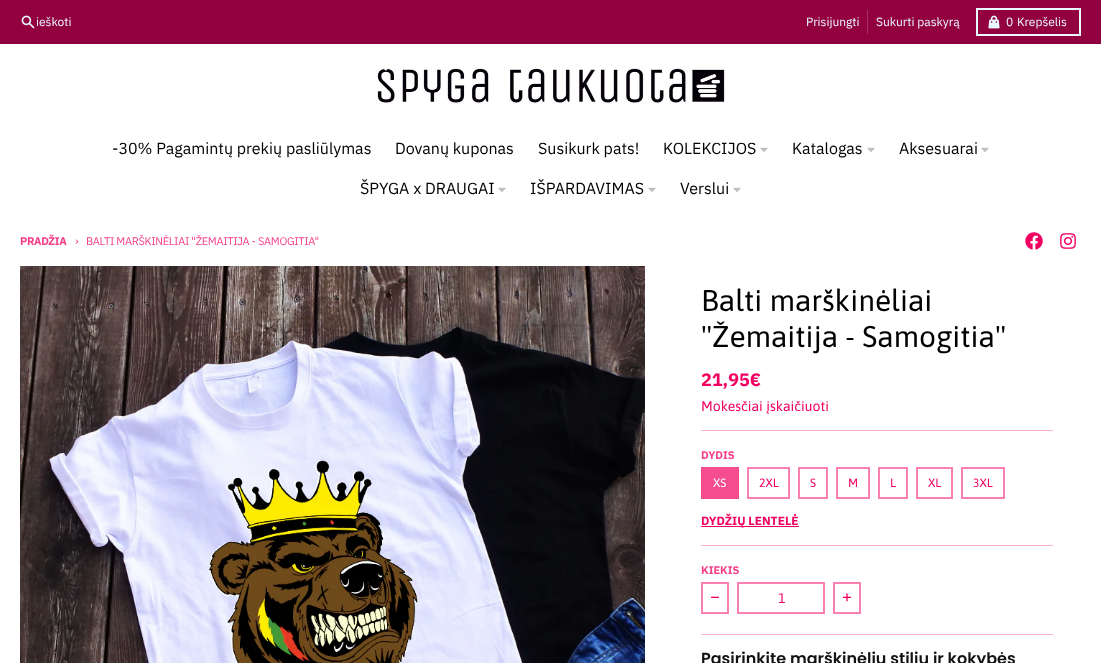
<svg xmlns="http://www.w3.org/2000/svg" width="1101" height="663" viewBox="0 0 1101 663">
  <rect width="100%" height="100%" fill="#93003f"/>
  <image x="21" y="15" width="14" height="14" href="img1.png"/>
  <text x="36" y="26" font-family="IBM Plex Sans" font-size="12" fill="#e9f9ff">ieškoti</text>
  <text x="806" y="26" font-family="IBM Plex Sans" font-size="12" fill="#e9f9ff">Prisijungti</text>
  <rect x="867" y="10" width="1" height="24" fill="#a43265"/>
  <text x="876" y="26" font-family="IBM Plex Sans" font-size="12" fill="#e9f9ff">Sukurti paskyrą</text>
  <rect x="977" y="9" width="103" height="26" fill="none" stroke="#e9f9ff" stroke-width="2"/>
  <image x="988" y="15" width="12" height="14" href="img2.png"/>
  <text x="1006" y="26" font-family="IBM Plex Sans" font-size="12" fill="#e9f9ff">0</text>
  <text x="1017" y="26" font-family="IBM Plex Sans" font-size="12" fill="#e9f9ff">Krepšelis</text>
  <rect x="0" y="44" width="1101" height="619" fill="#ffffff"/>
  <image x="377" y="68" width="348" height="35" href="img3.png"/>
  <text x="112" y="154" font-family="IBM Plex Sans" font-size="16" fill="#000000">-30% Pagamintų prekių pasliūlymas</text>
  <text x="395" y="154" font-family="IBM Plex Sans" font-size="16" fill="#000000">Dovanų kuponas</text>
  <text x="538" y="154" font-family="IBM Plex Sans" font-size="16" fill="#000000">Susikurk pats!</text>
  <text x="663" y="154" font-family="IBM Plex Sans" font-size="16" fill="#000000">KOLEKCIJOS</text>
  <image x="760" y="147" width="8" height="5" href="img4.png"/>
  <text x="792" y="154" font-family="IBM Plex Sans" font-size="16" fill="#000000">Katalogas</text>
  <image x="867" y="147" width="8" height="5" href="img4.png"/>
  <text x="899" y="154" font-family="IBM Plex Sans" font-size="16" fill="#000000">Aksesuarai</text>
  <image x="981" y="147" width="8" height="5" href="img4.png"/>
  <text x="360" y="194" font-family="IBM Plex Sans" font-size="16" fill="#000000">ŠPYGA x DRAUGAI</text>
  <image x="498" y="187" width="8" height="5" href="img4.png"/>
  <text x="530" y="194" font-family="IBM Plex Sans" font-size="16" fill="#000000">IŠPARDAVIMAS</text>
  <image x="648" y="187" width="8" height="5" href="img4.png"/>
  <text x="680" y="194" font-family="IBM Plex Sans" font-size="16" fill="#000000">Verslui</text>
  <image x="733" y="187" width="8" height="5" href="img4.png"/>
  <text x="20" y="245" font-family="IBM Plex Sans" font-size="11" font-weight="bold" letter-spacing="-0.3" fill="#f54089">PRADŽIA</text>
  <text x="75" y="245" font-family="IBM Plex Sans" font-size="12" letter-spacing="-0.3" fill="#f54089">›</text>
  <text x="86" y="245" font-family="IBM Plex Sans" font-size="11" letter-spacing="-0.3" fill="#f54089">BALTI MARŠKINĖLIAI "ŽEMAITIJA - SAMOGITIA"</text>
  <image x="1025" y="232" width="18" height="18" href="img5.png"/>
  <image x="1060" y="233" width="16" height="16" href="img6.png"/>
  <image x="20" y="266" width="625" height="397" href="img7.png"/>
  <text x="701" y="311" font-family="Asap" font-size="30" fill="#000000">Balti marškinėliai</text>
  <text x="701" y="347" font-family="Asap" font-size="30" fill="#000000">"Žemaitija - Samogitia"</text>
  <text x="701" y="386" font-family="IBM Plex Sans" font-size="18" font-weight="bold" fill="#f20061">21,95€</text>
  <text x="701" y="411" font-family="Asap" font-size="14" fill="#f20061">Mokesčiai įskaičiuoti</text>
  <rect x="701" y="430" width="352" height="1" fill="#fbb3d0"/>
  <text x="701" y="459" font-family="IBM Plex Sans" font-size="11" font-weight="bold" fill="#f54089">DYDIS</text>
  <rect x="701" y="467" width="38" height="32" fill="#f64d90"/>
  <text x="713" y="487" font-family="Asap" font-size="12" fill="#ffffff">XS</text>
  <rect x="748" y="468" width="41" height="30" fill="none" stroke="#f980b0" stroke-width="2"/>
  <text x="759" y="487" font-family="Asap" font-size="12" fill="#f20061">2XL</text>
  <rect x="799" y="468" width="28" height="30" fill="none" stroke="#f980b0" stroke-width="2"/>
  <text x="810" y="487" font-family="Asap" font-size="12" fill="#f20061">S</text>
  <rect x="837" y="468" width="32" height="30" fill="none" stroke="#f980b0" stroke-width="2"/>
  <text x="848" y="487" font-family="Asap" font-size="12" fill="#f20061">M</text>
  <rect x="879" y="468" width="28" height="30" fill="none" stroke="#f980b0" stroke-width="2"/>
  <text x="890" y="487" font-family="Asap" font-size="12" fill="#f20061">L</text>
  <rect x="917" y="468" width="35" height="30" fill="none" stroke="#f980b0" stroke-width="2"/>
  <text x="928" y="487" font-family="Asap" font-size="12" fill="#f20061">XL</text>
  <rect x="962" y="468" width="42" height="30" fill="none" stroke="#f980b0" stroke-width="2"/>
  <text x="973" y="487" font-family="Asap" font-size="12" fill="#f20061">3XL</text>
  <rect x="701" y="526" width="98" height="1" fill="#f20061"/>
  <text x="701" y="525" font-family="IBM Plex Sans" font-size="12" font-weight="bold" fill="#f20061">DYDŽIŲ LENTELĖ</text>
  <rect x="701" y="545" width="352" height="1" fill="#fbb3d0"/>
  <text x="701" y="574" font-family="IBM Plex Sans" font-size="11" font-weight="bold" fill="#f54089">KIEKIS</text>
  <rect x="702" y="583" width="26" height="30" fill="none" stroke="#f980b0" stroke-width="2"/>
  <image x="711" y="596" width="8" height="2" href="img8.png"/>
  <rect x="738" y="583" width="86" height="30" fill="none" stroke="#f980b0" stroke-width="2"/>
  <text x="778" y="603" font-family="Asap" font-size="14" fill="#f20061">1</text>
  <rect x="834" y="583" width="26" height="30" fill="none" stroke="#f980b0" stroke-width="2"/>
  <image x="843" y="593" width="8" height="9" href="img9.png"/>
  <rect x="701" y="634" width="352" height="1" fill="#fbb3d0"/>
  <text x="701" y="664" font-family="Poppins" font-size="16" font-weight="600" fill="#121212">Pasirinkite marškinėlių stilių ir kokybės</text>
</svg>
